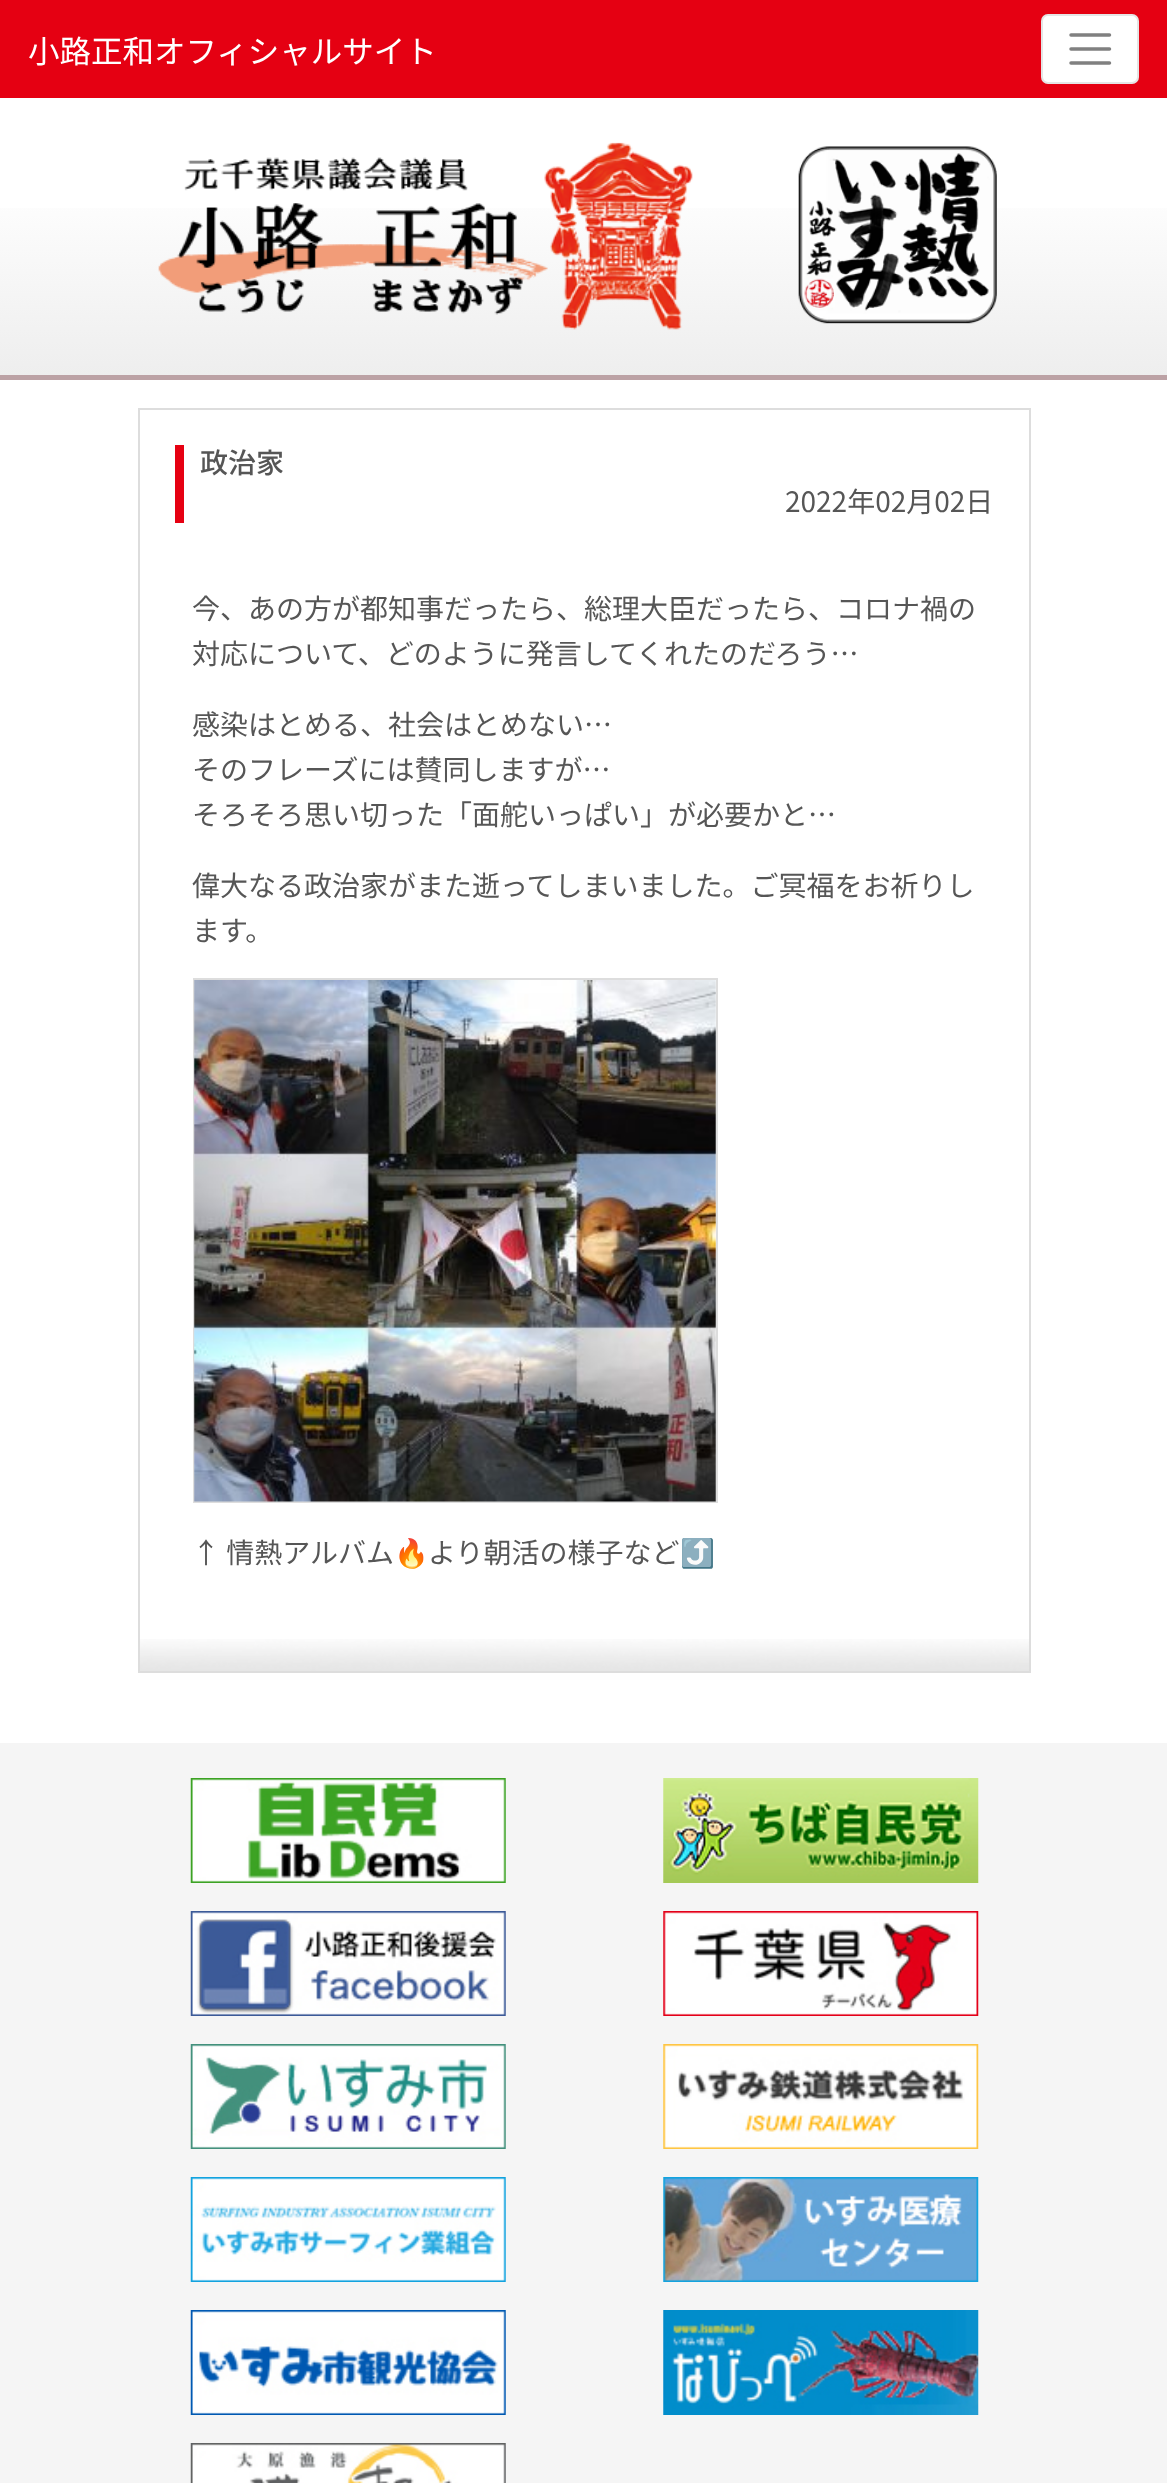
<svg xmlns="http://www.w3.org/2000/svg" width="1167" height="2483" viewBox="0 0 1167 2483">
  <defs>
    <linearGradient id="g1" gradientUnits="userSpaceOnUse" x1="584" y1="96" x2="584" y2="375"><stop offset="0.3" stop-color="#ffffff"/><stop offset="1" stop-color="#eeeeee"/></linearGradient>
  </defs>
  <rect width="100%" height="100%" fill="#ffffff"/>
  <rect x="0" y="0" width="1167" height="98" fill="#e50012"/>
  <text x="28" y="63" font-family="Noto Sans JP" font-size="31.5" fill="#ffffff">小路正和オフィシャルサイト</text>
  <rect x="1041" y="14" width="98" height="70" rx="7" fill="#ffffff"/>
  <rect x="1042" y="15" width="96" height="68" rx="6" fill="none" stroke="#000000" stroke-opacity="0.1" stroke-width="2"/>
  <path d="M1071 35H1109.5M1071 49H1109.5M1071 63H1109.5" fill="none" stroke="#808080" stroke-width="3.5" stroke-linecap="round"/>
  <rect x="0" y="208" width="1167" height="167" fill="url(#g1)"/>
  <rect x="0" y="375" width="1167" height="5" fill="#bca2a5"/>
  <image x="158" y="142" width="535" height="188" href="img1.png"/>
  <image x="798" y="146" width="199" height="178" href="img2.png"/>
  <image x="140" y="1639" width="889" height="32" href="img3.png"/>
  <rect x="139" y="409" width="891" height="1263" fill="none" stroke="#dddddd" stroke-width="2"/>
  <rect x="175" y="445" width="9" height="78" fill="#e60012"/>
  <text x="200" y="473" font-family="Noto Sans JP" font-size="28" font-weight="500" fill="#565656">政治家</text>
  <text x="785" y="512" font-family="Noto Sans JP" font-size="28" fill="#565656">2022年02月02日</text>
  <text x="192" y="619" font-family="Noto Sans JP" font-size="28" fill="#565656">今、あの方が都知事だったら、総理大臣だったら、コロナ禍の</text>
  <text x="192" y="664" font-family="Noto Sans JP" font-size="28" fill="#565656">対応について、どのように発言してくれたのだろう…</text>
  <text x="192" y="735" font-family="Noto Sans JP" font-size="28" fill="#565656">感染はとめる、社会はとめない…</text>
  <text x="192" y="780" font-family="Noto Sans JP" font-size="28" fill="#565656">そのフレーズには賛同しますが…</text>
  <text x="192" y="825" font-family="Noto Sans JP" font-size="28" fill="#565656">そろそろ思い切った「面舵いっぱい」が必要かと…</text>
  <text x="192" y="896" font-family="Noto Sans JP" font-size="28" fill="#565656">偉大なる政治家がまた逝ってしまいました。ご冥福をお祈りし</text>
  <text x="192" y="941" font-family="Noto Sans JP" font-size="28" fill="#565656">ます。</text>
  <rect x="194" y="979" width="523" height="523" fill="none" stroke="#dddddd" stroke-width="2"/>
  <image x="194" y="980" width="522" height="522" href="img4.png"/>
  <text x="192" y="1563" font-family="Noto Sans JP" font-size="28" fill="#565656">↑ 情熱アルバム</text>
  <text x="394" y="1563" font-family="Noto Color Emoji" font-size="28" fill="#565656">🔥</text>
  <text x="428" y="1563" font-family="Noto Sans JP" font-size="28" fill="#565656">より朝活の様子など</text>
  <text x="680" y="1563" font-family="Noto Color Emoji" font-size="28" fill="#565656">⤴️</text>
  <rect x="0" y="1743" width="1167" height="740" fill="#f5f5f5"/>
  <image x="190" y="1778" width="316" height="105" href="img5.png"/>
  <image x="663" y="1778" width="316" height="105" href="img6.png"/>
  <image x="190" y="1911" width="316" height="105" href="img7.png"/>
  <image x="663" y="1911" width="316" height="105" href="img8.png"/>
  <image x="190" y="2044" width="316" height="105" href="img9.png"/>
  <image x="663" y="2044" width="316" height="105" href="img10.png"/>
  <image x="190" y="2177" width="316" height="105" href="img11.png"/>
  <image x="663" y="2177" width="316" height="105" href="img12.png"/>
  <image x="190" y="2310" width="316" height="105" href="img13.png"/>
  <image x="663" y="2310" width="316" height="105" href="img14.png"/>
  <image x="190" y="2443" width="316" height="40" href="img15.png"/>
</svg>
